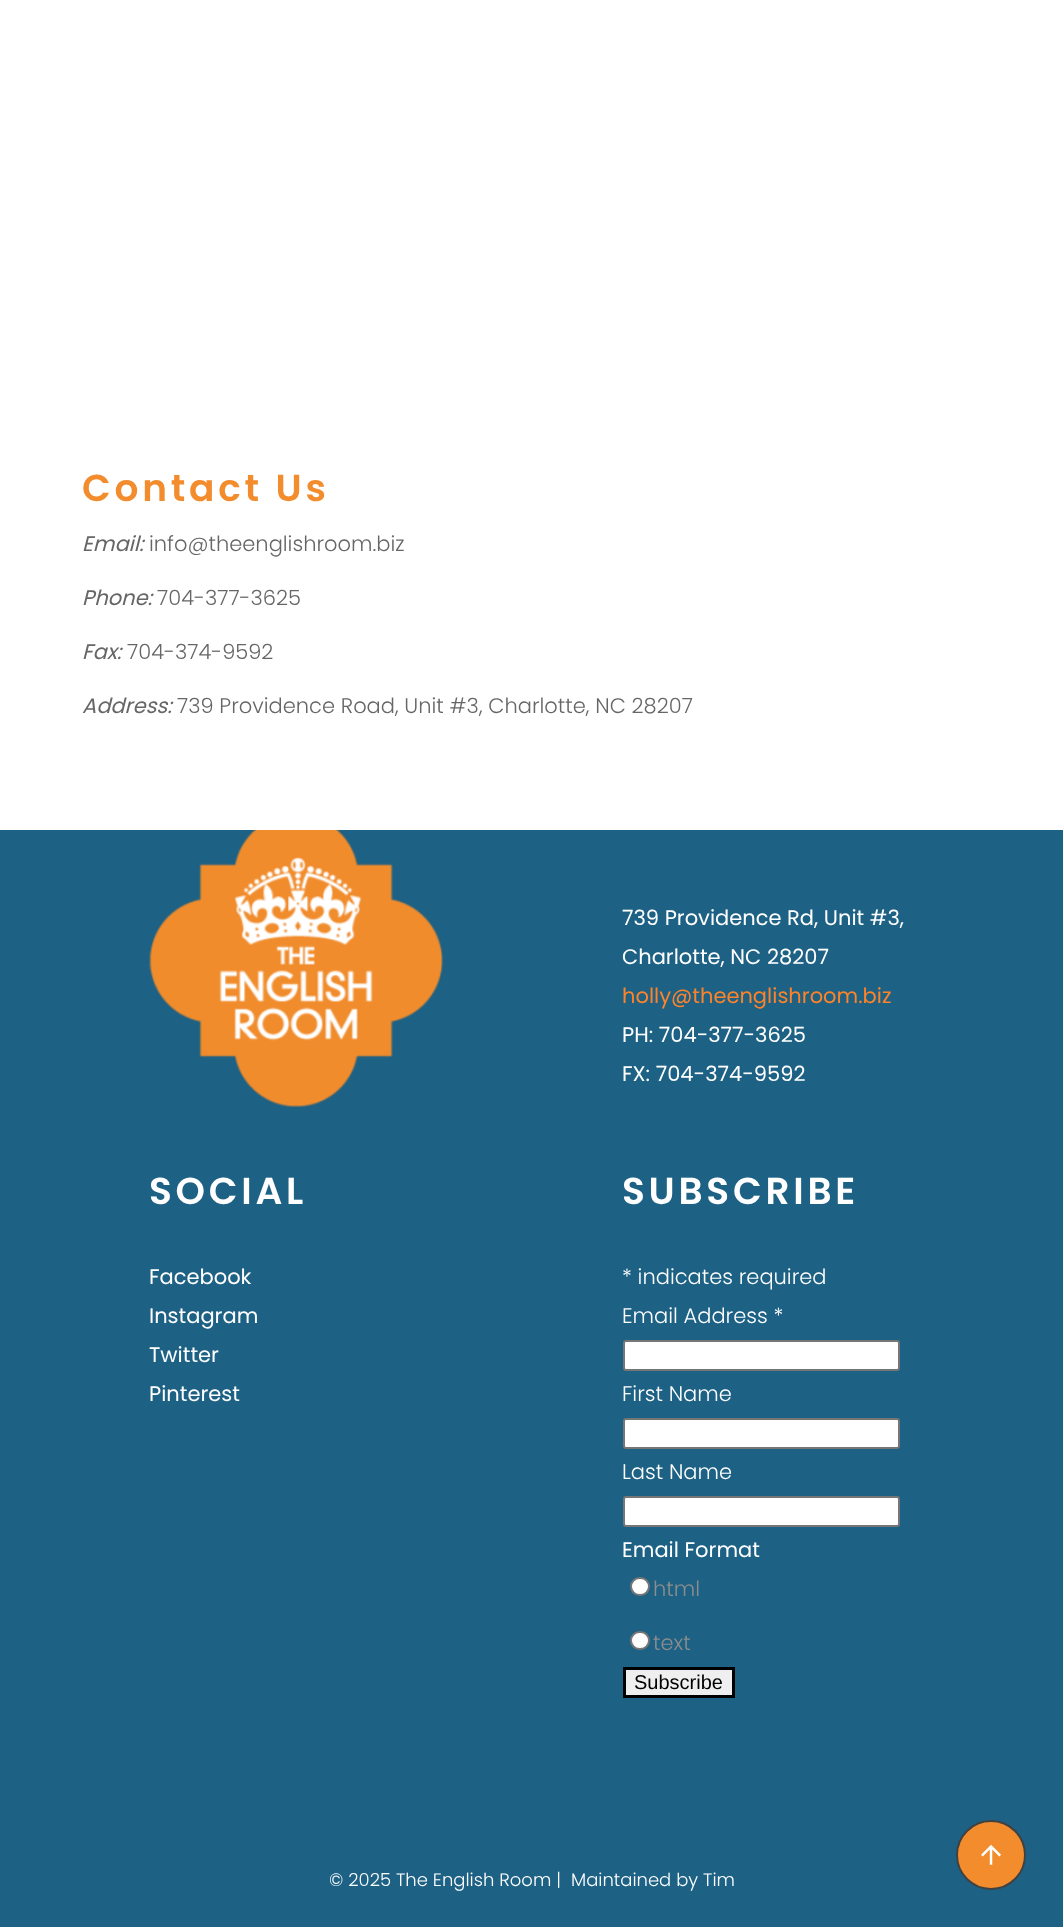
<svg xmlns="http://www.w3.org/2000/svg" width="1063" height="1927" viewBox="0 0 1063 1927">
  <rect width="100%" height="100%" fill="#1d6185"/>
  <rect x="0" y="0" width="1063" height="830" fill="#ffffff"/>
  <text x="82" y="501" font-family="Poppins" font-size="37.5" font-weight="600" letter-spacing="3.75" fill="#f28c2d">Contact Us</text>
  <text x="82" y="551" font-family="Poppins" font-size="21" font-style="italic" fill="#666666">Email:</text>
  <text x="149" y="551" font-family="Poppins" font-size="21" font-weight="300" fill="#666666">info@theenglishroom.biz</text>
  <text x="82" y="605" font-family="Poppins" font-size="21" font-style="italic" fill="#666666">Phone:</text>
  <text x="157" y="605" font-family="Poppins" font-size="21" font-weight="300" fill="#666666">704-377-3625</text>
  <text x="82" y="659" font-family="Poppins" font-size="21" font-style="italic" fill="#666666">Fax:</text>
  <text x="127" y="659" font-family="Poppins" font-size="21" font-weight="300" fill="#666666">704-374-9592</text>
  <text x="82" y="713" font-family="Poppins" font-size="21" font-style="italic" fill="#666666">Address:</text>
  <text x="177" y="713" font-family="Poppins" font-size="21" font-weight="300" fill="#666666">739 Providence Road, Unit #3, Charlotte, NC 28207</text>
  <image x="149" y="830" width="294" height="277" href="img1.png"/>
  <text x="622" y="925" font-family="Poppins" font-size="21" fill="#ffffff">739 Providence Rd, Unit #3,</text>
  <text x="622" y="964" font-family="Poppins" font-size="21" fill="#ffffff">Charlotte, NC 28207</text>
  <text x="622" y="1003" font-family="Poppins" font-size="21" fill="#fc832a">holly@theenglishroom.biz</text>
  <text x="622" y="1042" font-family="Poppins" font-size="21" fill="#ffffff">PH: 704-377-3625</text>
  <text x="622" y="1081" font-family="Poppins" font-size="21" fill="#ffffff">FX: 704-374-9592</text>
  <text x="149" y="1204" font-family="Poppins" font-size="37.5" font-weight="600" letter-spacing="3.75" fill="#ffffff">SOCIAL</text>
  <text x="149" y="1284" font-family="Poppins" font-size="21" fill="#ffffff">Facebook</text>
  <text x="149" y="1323" font-family="Poppins" font-size="21" fill="#ffffff">Instagram</text>
  <text x="149" y="1362" font-family="Poppins" font-size="21" fill="#ffffff">Twitter</text>
  <text x="149" y="1401" font-family="Poppins" font-size="21" fill="#ffffff">Pinterest</text>
  <text x="622" y="1204" font-family="Poppins" font-size="37.5" font-weight="600" letter-spacing="3.75" fill="#ffffff">SUBSCRIBE</text>
  <text x="622" y="1284" font-family="Poppins" font-size="21" font-weight="300" fill="#ffffff">* indicates required</text>
  <text x="622" y="1323" font-family="Poppins" font-size="21" font-weight="300" fill="#ffffff">Email Address *</text>
  <rect x="624" y="1341" width="275" height="29" rx="2" fill="#ffffff" stroke="#767676" stroke-width="2"/>
  <text x="622" y="1401" font-family="Poppins" font-size="21" font-weight="300" fill="#ffffff">First Name</text>
  <rect x="624" y="1419" width="275" height="29" rx="2" fill="#ffffff" stroke="#767676" stroke-width="2"/>
  <text x="622" y="1479" font-family="Poppins" font-size="21" font-weight="300" fill="#ffffff">Last Name</text>
  <rect x="624" y="1497" width="275" height="29" rx="2" fill="#ffffff" stroke="#767676" stroke-width="2"/>
  <text x="622" y="1557" font-family="Poppins" font-size="21" fill="#ffffff">Email Format</text>
  <rect x="631" y="1578" width="18" height="17" rx="8.5" fill="#ffffff" stroke="#767676" stroke-width="2"/>
  <text x="653" y="1596" font-family="Poppins" font-size="21" font-weight="300" fill="#8d8d8d">html</text>
  <rect x="631" y="1632" width="18" height="17" rx="8.5" fill="#ffffff" stroke="#767676" stroke-width="2"/>
  <text x="653" y="1650" font-family="Poppins" font-size="21" font-weight="300" fill="#8d8d8d">text</text>
  <rect x="624.5" y="1668.5" width="109" height="28" fill="#efefef" stroke="#000000" stroke-width="3"/>
  <text x="634" y="1689" font-family="Liberation Sans" font-size="20" fill="#000000">Subscribe</text>
  <text x="329" y="1886" font-family="Poppins" font-size="18" font-weight="300" fill="#ffffff">© 2025 The English Room |</text>
  <text x="571" y="1886" font-family="Poppins" font-size="18" font-weight="300" fill="#ffffff">Maintained by Tim</text>
  <circle cx="991" cy="1855" r="34" fill="#f28c2d" stroke="#414141" stroke-width="2"/>
  <image x="981" y="1844" width="20" height="21" href="img2.png"/>
</svg>
